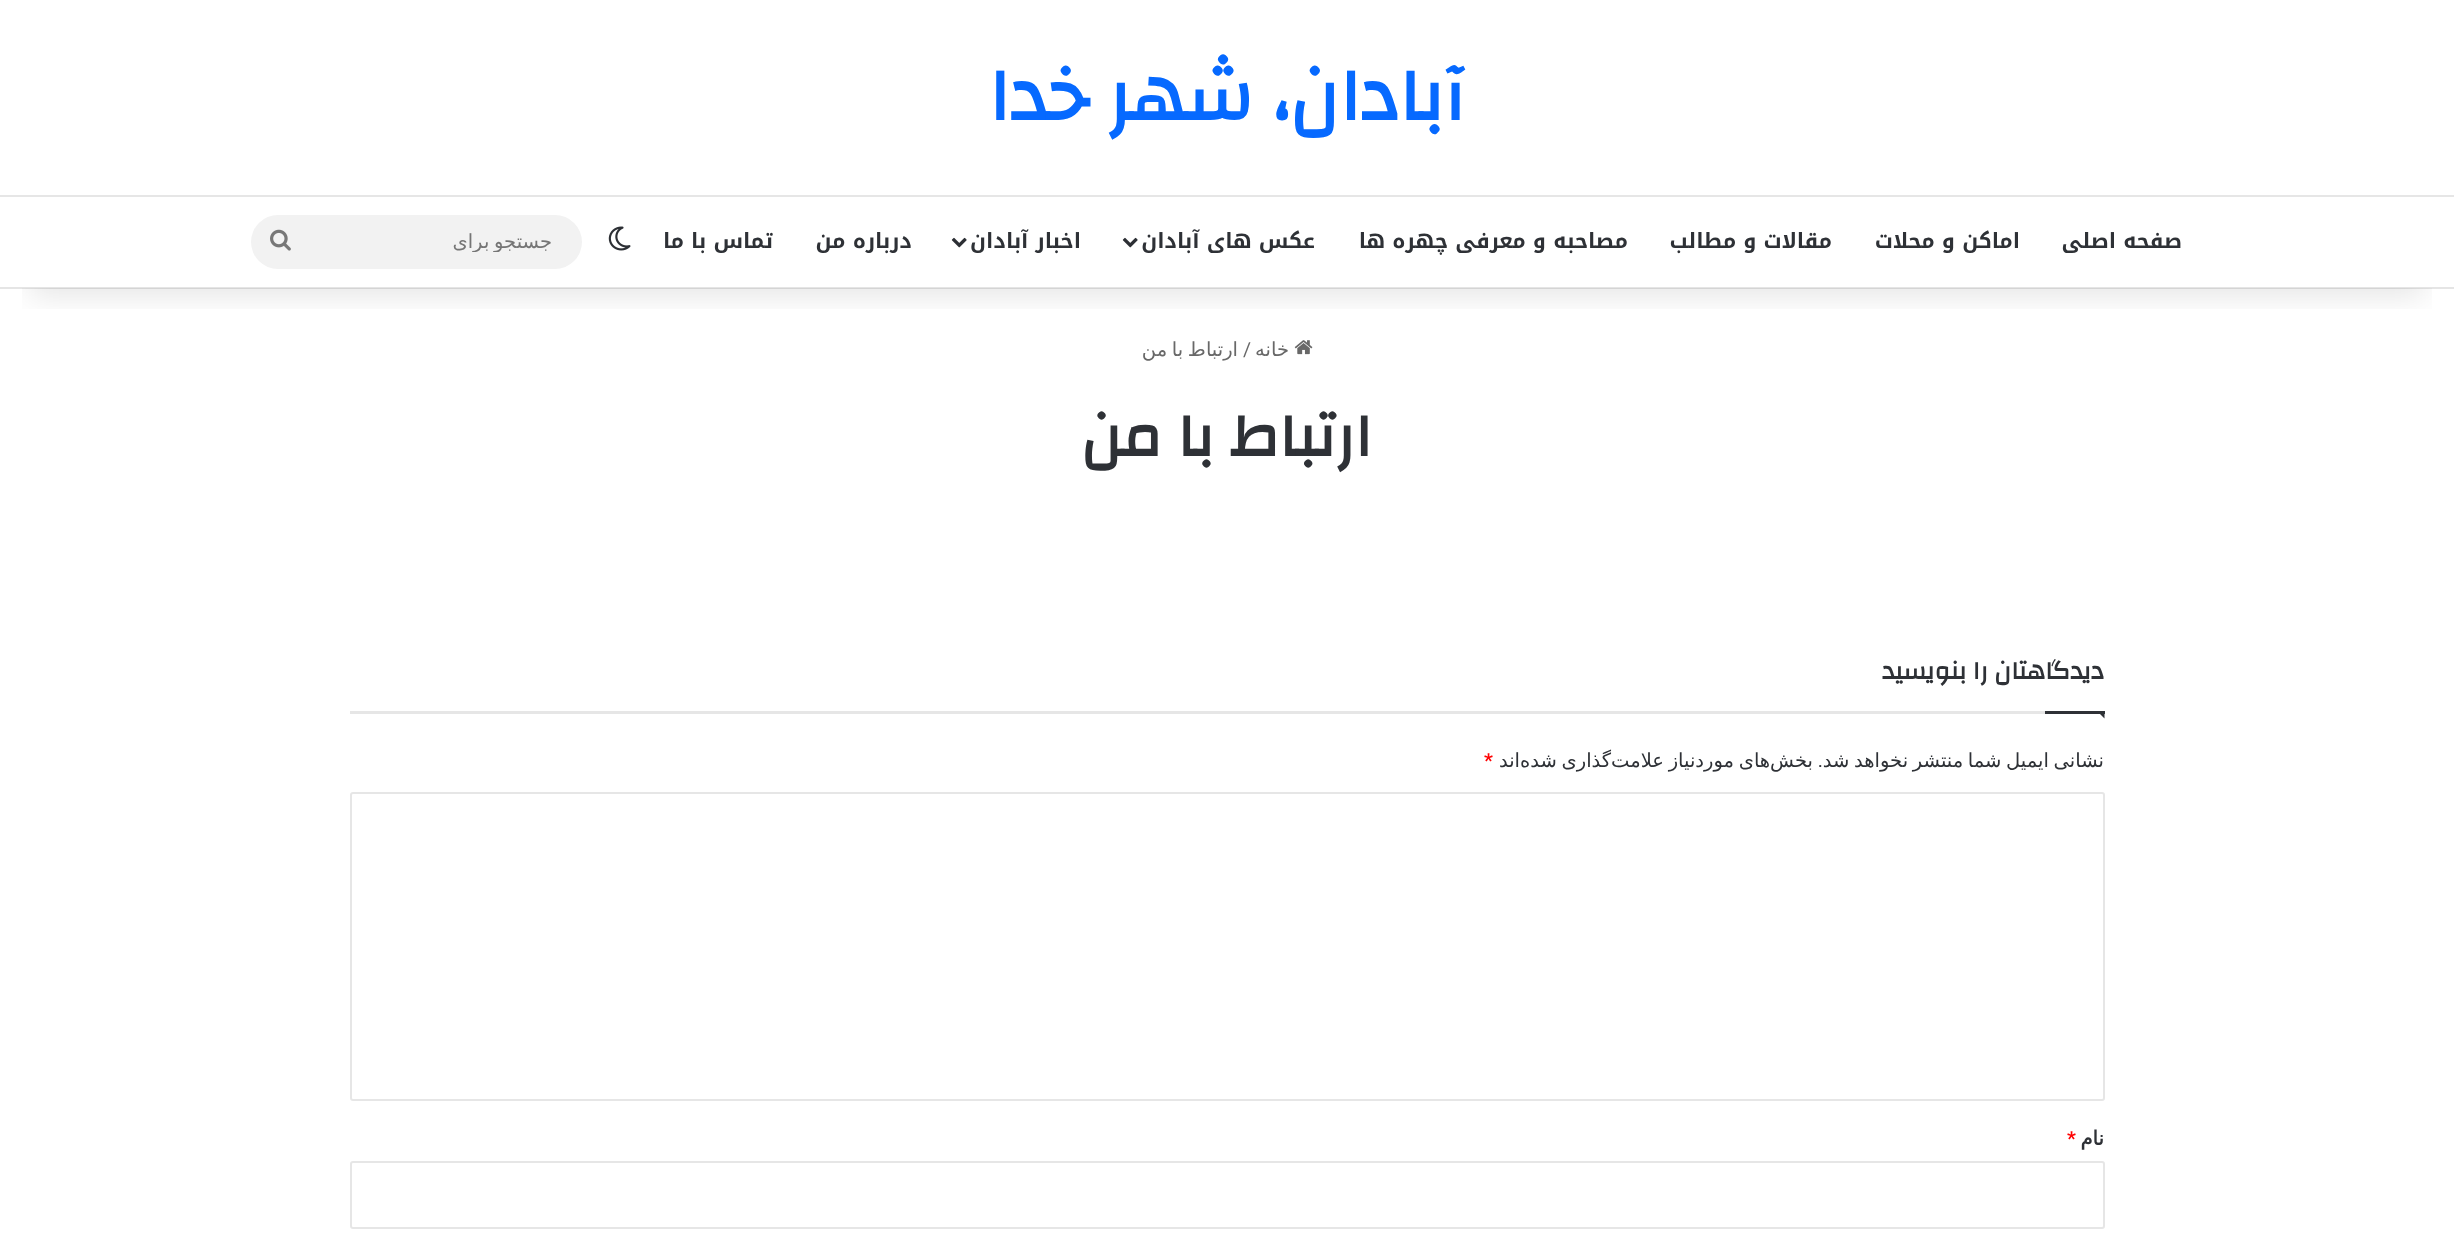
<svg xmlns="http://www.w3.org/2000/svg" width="2454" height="1244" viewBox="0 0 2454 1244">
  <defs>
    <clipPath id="clip1"><rect x="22" y="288" width="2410" height="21"/></clipPath>
    <filter id="blur1" x="-50%" y="-200%" width="200%" height="500%"><feGaussianBlur stdDeviation="15"/></filter>
    <clipPath id="clip2"><rect x="303" y="230" width="249" height="22"/></clipPath>
  </defs>
  <rect width="100%" height="100%" fill="#ffffff"/>
  <image x="1294" y="340" width="19" height="15" href="img4.png"/>
  <g clip-path="url(#clip1)">
    <rect x="30" y="68" width="2394" height="228" fill="#000000" fill-opacity="0.1" filter="url(#blur1)"/>
  </g>
  <text x="1465" y="120" font-family="Changa" font-size="75" font-weight="bold" direction="rtl" fill="#0669ff">آبادان، شهر خدا</text>
  <rect x="0" y="195" width="2454" height="2" fill="#e6e6e6"/>
  <rect x="0" y="287" width="2454" height="2" fill="#000000" fill-opacity="0.1"/>
  <text x="2182" y="248" font-family="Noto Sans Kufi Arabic" font-size="21" font-weight="bold" direction="rtl" fill="#2e3136">صفحه اصلی</text>
  <text x="2020" y="248" font-family="Noto Sans Kufi Arabic" font-size="21" font-weight="bold" direction="rtl" fill="#2e3136">اماکن و محلات</text>
  <text x="1832" y="248" font-family="Noto Sans Kufi Arabic" font-size="21" font-weight="bold" direction="rtl" fill="#2e3136">مقالات و مطالب</text>
  <text x="1628" y="248" font-family="Noto Sans Kufi Arabic" font-size="21" font-weight="bold" direction="rtl" fill="#2e3136">مصاحبه و معرفی چهره ها</text>
  <text x="1315" y="248" font-family="Noto Sans Kufi Arabic" font-size="21" font-weight="bold" direction="rtl" fill="#2e3136">عکس های آبادان</text>
  <image x="1122" y="237" width="16" height="11" href="img1.png"/>
  <text x="1081" y="248" font-family="Noto Sans Kufi Arabic" font-size="21" font-weight="bold" direction="rtl" fill="#2e3136">اخبار آبادان</text>
  <image x="951" y="237" width="16" height="11" href="img1.png"/>
  <text x="912" y="248" font-family="Noto Sans Kufi Arabic" font-size="21" font-weight="bold" direction="rtl" fill="#2e3136">درباره من</text>
  <text x="773" y="248" font-family="Noto Sans Kufi Arabic" font-size="21" font-weight="bold" direction="rtl" fill="#2e3136">تماس با ما</text>
  <image x="608" y="226" width="23" height="25" href="img2.png"/>
  <rect x="251" y="215" width="331" height="54" rx="27" fill="#f2f2f2"/>
  <g clip-path="url(#clip2)">
    <text x="552" y="248" word-spacing="-1.5" font-family="DejaVu Sans" font-size="19.5" direction="rtl" fill="#757575">جستجو برای</text>
  </g>
  <image x="270" y="229" width="21" height="22" href="img3.png"/>
  <text x="1289" y="356" font-family="DejaVu Sans" font-size="19.5" direction="rtl" fill="#686868">خانه</text>
  <text x="1243" y="356" font-family="Roboto" font-size="19.5" fill="#686868">/</text>
  <text x="1238" y="356" word-spacing="-1.5" font-family="DejaVu Sans" font-size="19.5" direction="rtl" fill="#686868">ارتباط با من</text>
  <text x="1372" y="456" font-family="Changa" font-size="61.5" font-weight="bold" direction="rtl" fill="#2e3136">ارتباط با من</text>
  <rect x="350" y="711" width="1695" height="3" fill="#e6e6e6"/>
  <text x="2104" y="679" font-family="Changa" font-size="25.5" font-weight="bold" direction="rtl" fill="#2e3136">دیدگاهتان را بنویسید</text>
  <path d="M2097 711H2104.5V718.5Z" fill="#2e3136"/>
  <rect x="2045" y="711" width="60" height="3" fill="#2e3136"/>
  <text x="2104" y="767" word-spacing="-1.5" font-family="DejaVu Sans" font-size="19.5" direction="rtl" fill="#2e3136">نشانی ایمیل شما منتشر نخواهد شد</text>
  <text x="1813" y="767" word-spacing="-1.5" font-family="DejaVu Sans" font-size="19.5" direction="rtl" fill="#2e3136">بخش‌های موردنیاز علامت‌گذاری شده‌اند</text>
  <text x="1484" y="767" font-family="Roboto" font-size="19.5" font-weight="bold" fill="#ff0303">*</text>
  <text x="1823" y="767" font-family="Roboto" font-size="19.5" direction="rtl" fill="#2e3136">.</text>
  <rect x="351" y="793" width="1753" height="307" rx="2" fill="none" stroke="#e6e6e6" stroke-width="2"/>
  <text x="2104" y="1145" font-family="DejaVu Sans" font-size="19.5" font-weight="bold" direction="rtl" fill="#2e3136">نام</text>
  <text x="2067" y="1145" font-family="Roboto" font-size="19.5" font-weight="bold" fill="#ff0303">*</text>
  <rect x="351" y="1162" width="1753" height="66" rx="2" fill="none" stroke="#e6e6e6" stroke-width="2"/>
</svg>
